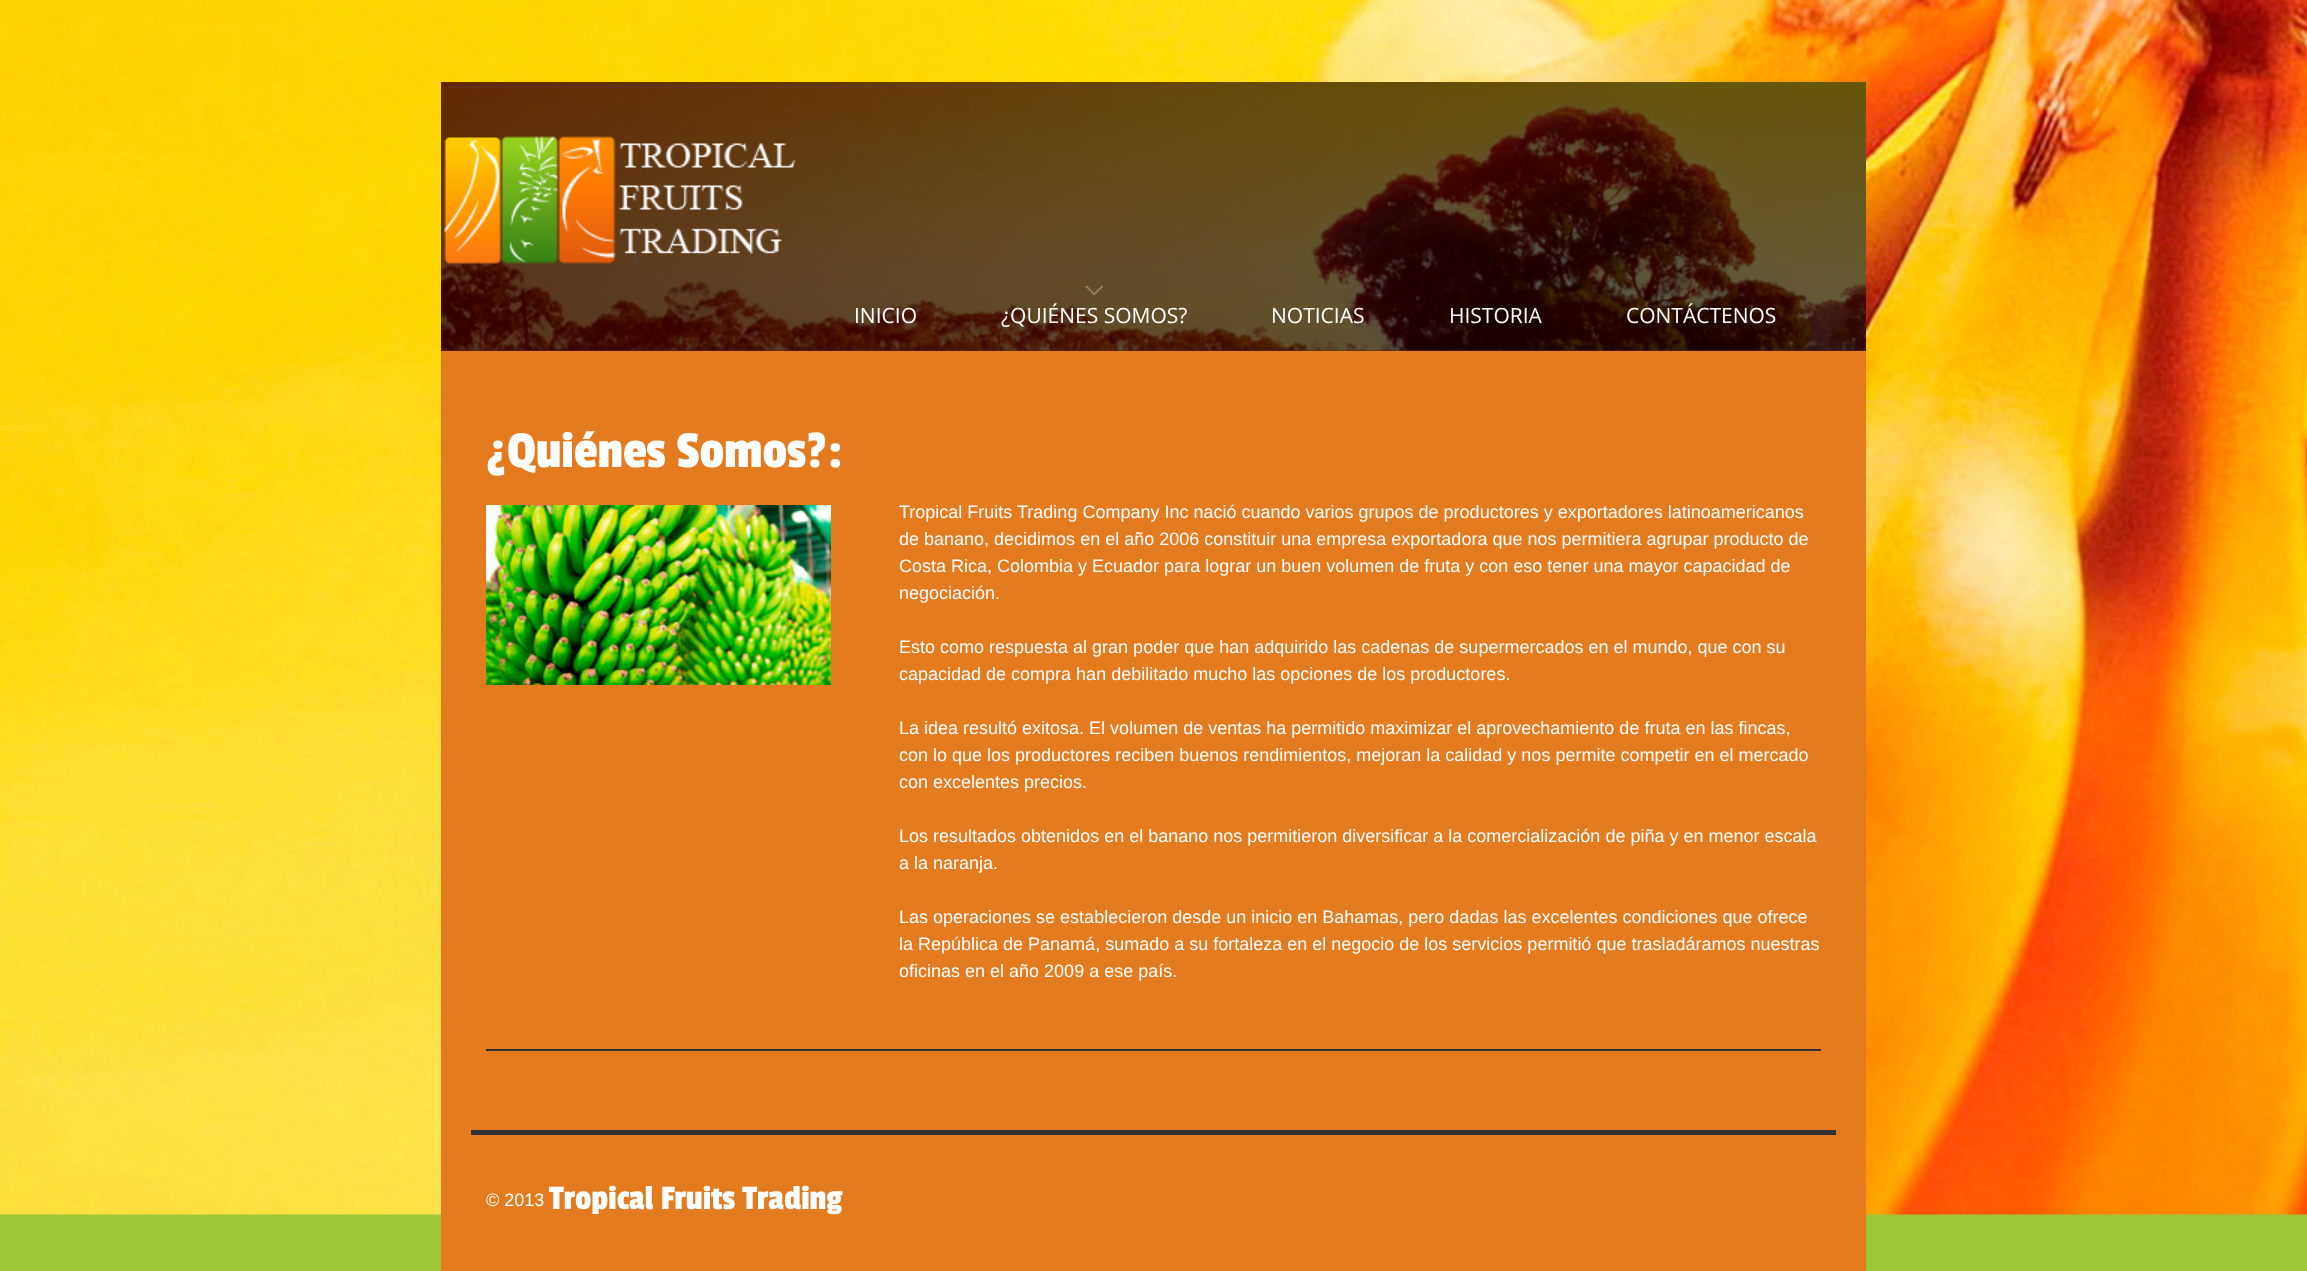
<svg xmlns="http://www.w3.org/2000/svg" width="2307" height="1271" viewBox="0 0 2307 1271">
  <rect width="100%" height="100%" fill="#9dc539"/>
  <image x="0" y="0" width="2307" height="1215" href="img1.png"/>
  <rect x="441" y="350" width="1425" height="921" fill="#e57b1f"/>
  <image x="441" y="82" width="1425" height="269" href="img2.png"/>
  <rect x="441" y="82" width="1425" height="269" fill="#000000" fill-opacity="0.6"/>
  <image x="444" y="136" width="352" height="128" href="img3.png"/>
  <text x="854" y="323" font-family="Open Sans" font-size="21" fill="#ffffff">INICIO</text>
  <image x="1086" y="286" width="17" height="9" href="img4.png"/>
  <text x="1001" y="323" font-family="Open Sans" font-size="21" fill="#ffffff">¿QUIÉNES SOMOS?</text>
  <text x="1271" y="323" font-family="Open Sans" font-size="21" fill="#ffffff">NOTICIAS</text>
  <text x="1449" y="323" font-family="Open Sans" font-size="21" fill="#ffffff">HISTORIA</text>
  <text x="1626" y="323" font-family="Open Sans" font-size="21" fill="#ffffff">CONTÁCTENOS</text>
  <text x="486" y="467" font-family="Passion One" font-size="54" fill="#ffffff">¿Quiénes Somos?:</text>
  <rect x="486" y="1049" width="1335" height="2" fill="#323232"/>
  <image x="486" y="505" width="345" height="180" href="img5.png"/>
  <text x="899" y="518" font-family="Liberation Sans" font-size="18" fill="#ffffff">Tropical Fruits Trading Company Inc nació cuando varios grupos de productores y exportadores latinoamericanos</text>
  <text x="899" y="545" font-family="Liberation Sans" font-size="18" fill="#ffffff">de banano, decidimos en el año 2006 constituir una empresa exportadora que nos permitiera agrupar producto de</text>
  <text x="899" y="572" font-family="Liberation Sans" font-size="18" fill="#ffffff">Costa Rica, Colombia y Ecuador para lograr un buen volumen de fruta y con eso tener una mayor capacidad de</text>
  <text x="899" y="599" font-family="Liberation Sans" font-size="18" fill="#ffffff">negociación.</text>
  <text x="899" y="653" font-family="Liberation Sans" font-size="18" fill="#ffffff">Esto como respuesta al gran poder que han adquirido las cadenas de supermercados en el mundo, que con su</text>
  <text x="899" y="680" font-family="Liberation Sans" font-size="18" fill="#ffffff">capacidad de compra han debilitado mucho las opciones de los productores.</text>
  <text x="899" y="734" font-family="Liberation Sans" font-size="18" fill="#ffffff">La idea resultó exitosa. El volumen de ventas ha permitido maximizar el aprovechamiento de fruta en las fincas,</text>
  <text x="899" y="761" font-family="Liberation Sans" font-size="18" fill="#ffffff">con lo que los productores reciben buenos rendimientos, mejoran la calidad y nos permite competir en el mercado</text>
  <text x="899" y="788" font-family="Liberation Sans" font-size="18" fill="#ffffff">con excelentes precios.</text>
  <text x="899" y="842" font-family="Liberation Sans" font-size="18" fill="#ffffff">Los resultados obtenidos en el banano nos permitieron diversificar a la comercialización de piña y en menor escala</text>
  <text x="899" y="869" font-family="Liberation Sans" font-size="18" fill="#ffffff">a la naranja.</text>
  <text x="899" y="923" font-family="Liberation Sans" font-size="18" fill="#ffffff">Las operaciones se establecieron desde un inicio en Bahamas, pero dadas las excelentes condiciones que ofrece</text>
  <text x="899" y="950" font-family="Liberation Sans" font-size="18" fill="#ffffff">la República de Panamá, sumado a su fortaleza en el negocio de los servicios permitió que trasladáramos nuestras</text>
  <text x="899" y="977" font-family="Liberation Sans" font-size="18" fill="#ffffff">oficinas en el año 2009 a ese país.</text>
  <rect x="471" y="1130" width="1365" height="5" fill="#323232"/>
  <text x="486" y="1206" font-family="Liberation Sans" font-size="18" fill="#ffffff">© 2013</text>
  <text x="549" y="1209" font-family="Passion One" font-size="36" fill="#ffffff">Tropical Fruits Trading</text>
</svg>
